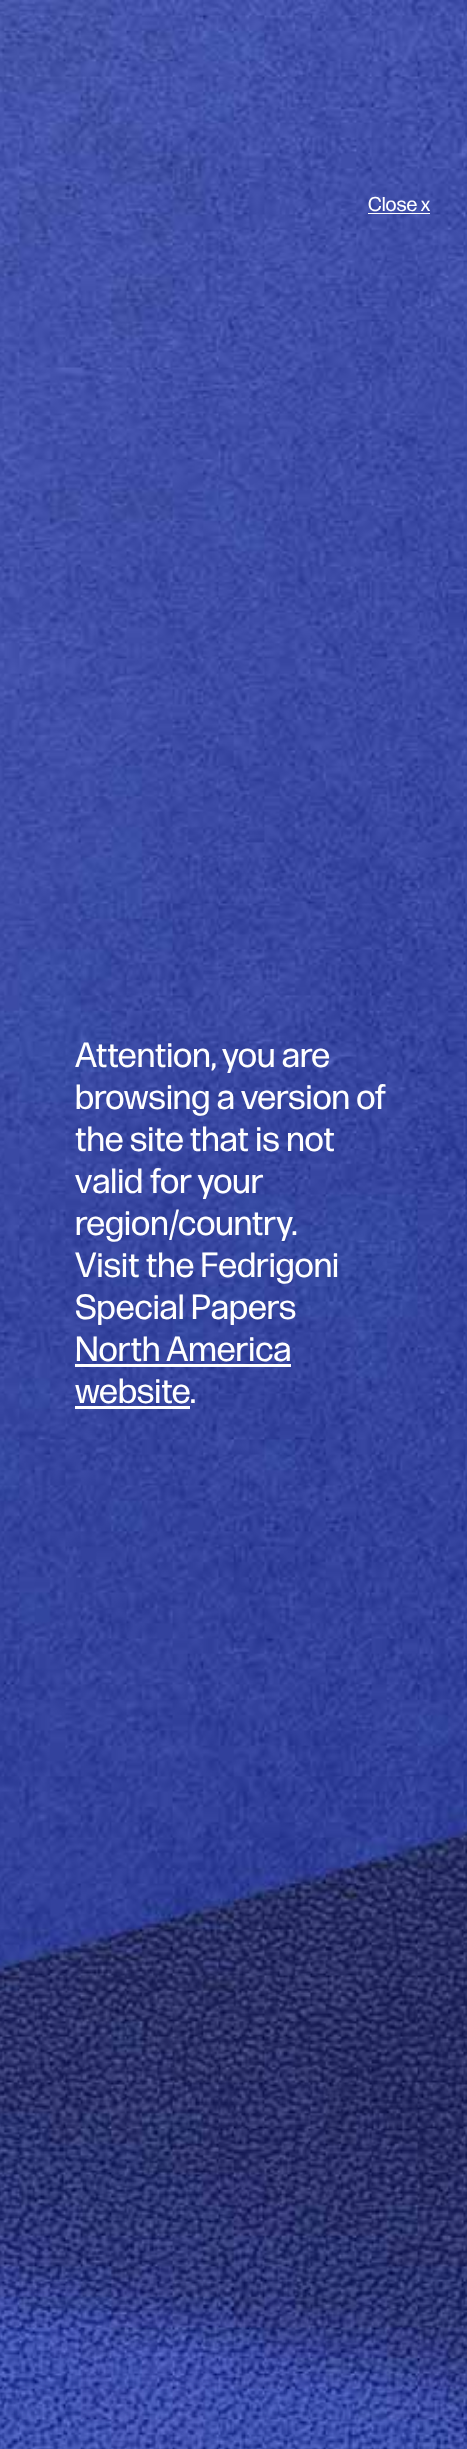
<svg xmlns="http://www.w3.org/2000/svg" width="467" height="2449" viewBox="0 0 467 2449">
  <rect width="100%" height="100%" fill="#ffffff"/>
  <image x="0" y="0" width="467" height="2449" href="img1.png"/>
  <text x="368" y="211" font-family="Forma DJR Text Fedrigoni" font-size="20" fill="#ffffff">Close x</text>
  <rect x="368" y="213" width="62" height="1" fill="#ffffff"/>
  <text x="75" y="1067" font-family="Forma DJR Text Fedrigoni" font-size="35" fill="#ffffff">Attention, you are</text>
  <text x="75" y="1109" font-family="Forma DJR Text Fedrigoni" font-size="35" fill="#ffffff">browsing a version of</text>
  <text x="75" y="1151" font-family="Forma DJR Text Fedrigoni" font-size="35" fill="#ffffff">the site that is not</text>
  <text x="75" y="1193" font-family="Forma DJR Text Fedrigoni" font-size="35" fill="#ffffff">valid for your</text>
  <text x="75" y="1235" font-family="Forma DJR Text Fedrigoni" font-size="35" fill="#ffffff">region/country.</text>
  <text x="75" y="1277" font-family="Forma DJR Text Fedrigoni" font-size="35" fill="#ffffff">Visit the Fedrigoni</text>
  <text x="75" y="1319" font-family="Forma DJR Text Fedrigoni" font-size="35" fill="#ffffff">Special Papers</text>
  <text x="75" y="1361" font-family="Forma DJR Text Fedrigoni" font-size="35" fill="#ffffff">North America</text>
  <rect x="75" y="1364" width="216" height="3" fill="#ffffff"/>
  <text x="75" y="1403" font-family="Forma DJR Text Fedrigoni" font-size="35" fill="#ffffff">website</text>
  <rect x="75" y="1406" width="115" height="3" fill="#ffffff"/>
  <text x="190" y="1403" font-family="Forma DJR Text Fedrigoni" font-size="35" fill="#ffffff">.</text>
</svg>
